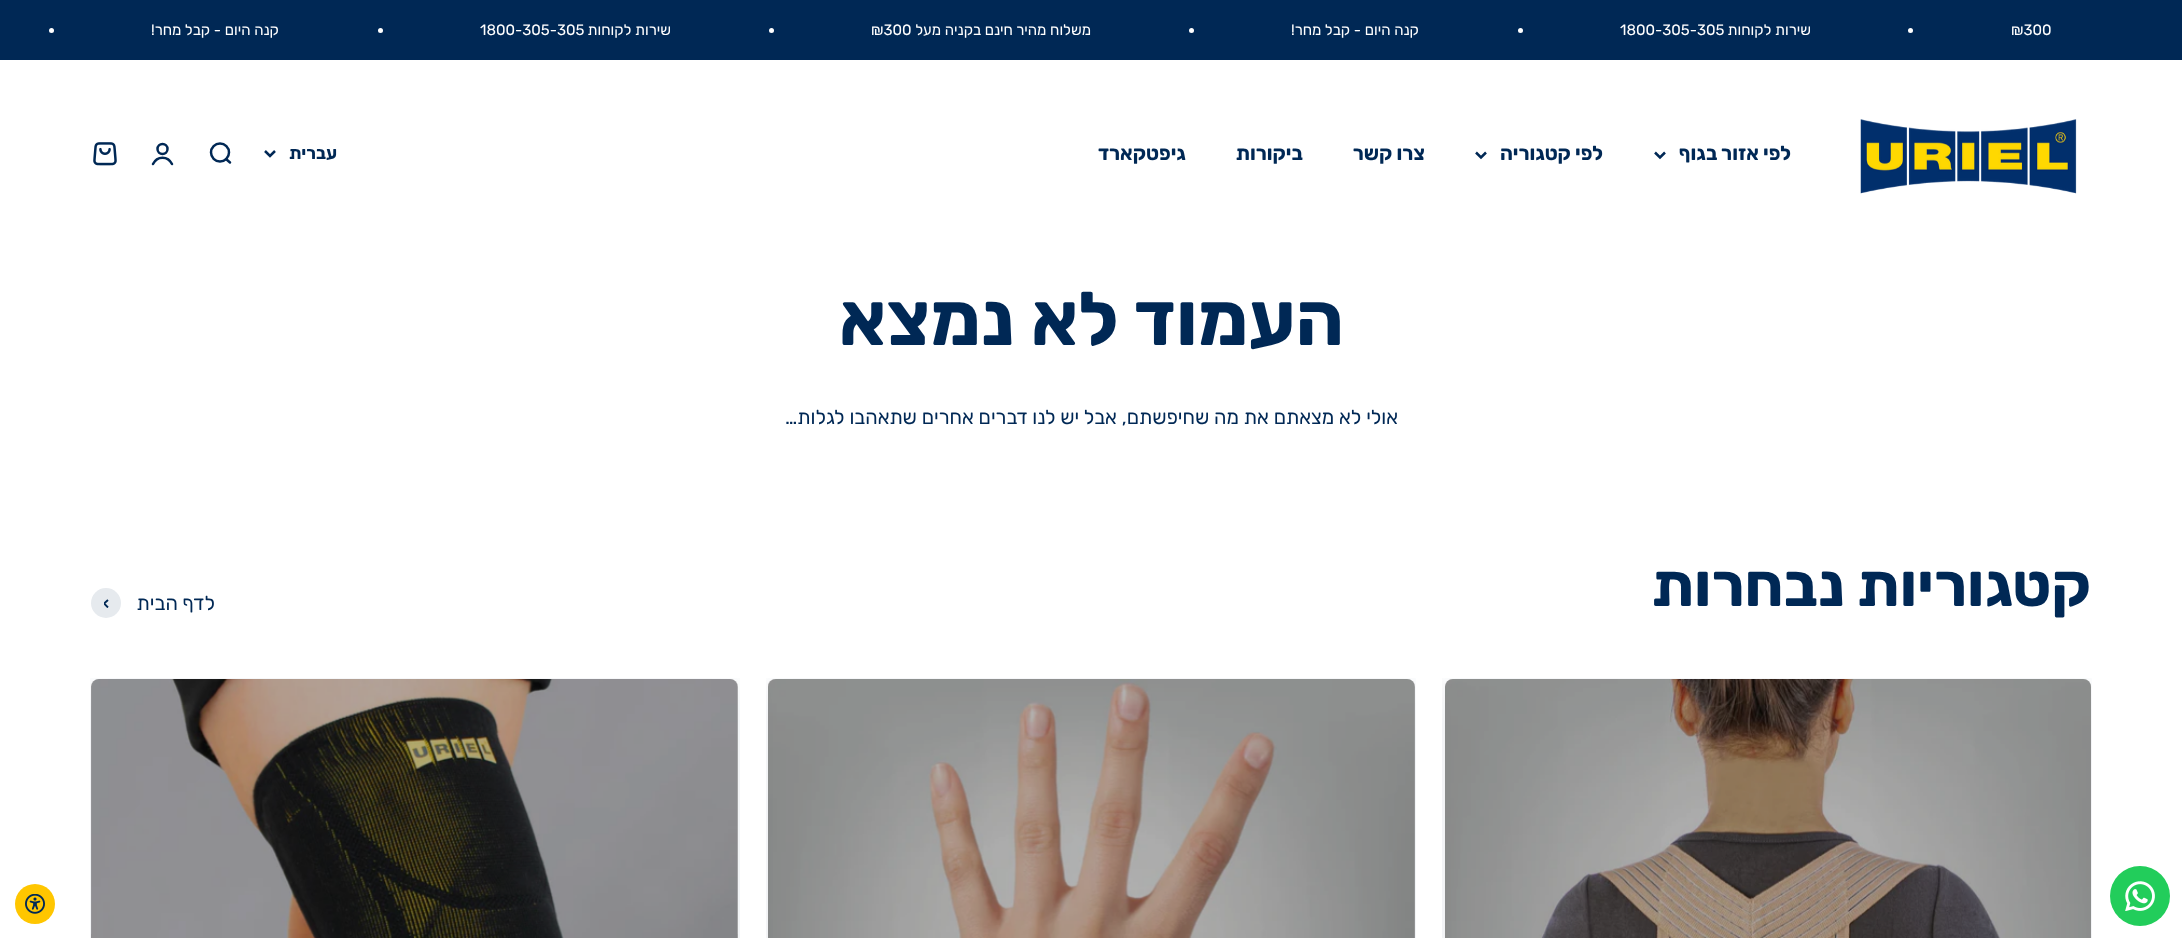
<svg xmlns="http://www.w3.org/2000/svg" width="2182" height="938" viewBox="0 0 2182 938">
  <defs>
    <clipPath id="clip1"><rect x="104" y="598" width="6" height="10"/></clipPath>
  </defs>
  <rect width="100%" height="100%" fill="#ffffff"/>
  <rect x="0" y="0" width="2182" height="60" fill="#002855"/>
  <text x="2011" y="35" font-family="Rubik" font-size="15" fill="#ffffff">₪300</text>
  <circle cx="1910.5" cy="30.5" r="2.5" fill="#ffffff"/>
  <text x="1811" y="35" font-family="Rubik" font-size="15" direction="rtl" fill="#ffffff">שירות לקוחות</text>
  <text x="1620" y="35" font-family="Rubik" font-size="15" fill="#ffffff">1800-305-305</text>
  <circle cx="1520.5" cy="30.5" r="2.5" fill="#ffffff"/>
  <text x="1419" y="35" font-family="Rubik" font-size="15" direction="rtl" fill="#ffffff">קנה היום - קבל מחר!</text>
  <circle cx="1191.5" cy="30.5" r="2.5" fill="#ffffff"/>
  <text x="1091" y="35" font-family="Rubik" font-size="15" direction="rtl" fill="#ffffff">משלוח מהיר חינם בקניה מעל</text>
  <text x="871" y="35" font-family="Rubik" font-size="15" fill="#ffffff">₪300</text>
  <circle cx="771.5" cy="30.5" r="2.5" fill="#ffffff"/>
  <text x="671" y="35" font-family="Rubik" font-size="15" direction="rtl" fill="#ffffff">שירות לקוחות</text>
  <text x="480" y="35" font-family="Rubik" font-size="15" fill="#ffffff">1800-305-305</text>
  <circle cx="380.5" cy="30.5" r="2.5" fill="#ffffff"/>
  <text x="279" y="35" font-family="Rubik" font-size="15" direction="rtl" fill="#ffffff">קנה היום - קבל מחר!</text>
  <circle cx="51.5" cy="30.5" r="2.5" fill="#ffffff"/>
  <image x="1860" y="119" width="217" height="75" href="img1.png"/>
  <text x="1791" y="160" font-family="Rubik" font-size="20" font-weight="bold" direction="rtl" fill="#002855">לפי אזור בגוף</text>
  <path d="M1655 152.5L1660 157.5L1665 152.5" fill="none" stroke="#002855" stroke-width="2.5"/>
  <text x="1603" y="160" font-family="Rubik" font-size="20" font-weight="bold" direction="rtl" fill="#002855">לפי קטגוריה</text>
  <path d="M1476 152.5L1481 157.5L1486 152.5" fill="none" stroke="#002855" stroke-width="2.5"/>
  <text x="1425" y="160" font-family="Rubik" font-size="20" font-weight="bold" direction="rtl" fill="#002855">צרו קשר</text>
  <text x="1303" y="160" font-family="Rubik" font-size="20" font-weight="bold" direction="rtl" fill="#002855">ביקורות</text>
  <text x="1186" y="160" font-family="Rubik" font-size="20" font-weight="bold" direction="rtl" fill="#002855">גיפטקארד</text>
  <text x="337" y="159" font-family="Rubik" font-size="17.5" font-weight="bold" direction="rtl" fill="#002855">עברית</text>
  <path d="M265 151L270 156L275 151" fill="none" stroke="#002855" stroke-width="2.5"/>
  <circle cx="220" cy="152.5" r="9" fill="none" stroke="#002855" stroke-width="2.5"/>
  <path d="M226 159L230 162.5" fill="none" stroke="#002855" stroke-width="2.5" stroke-linecap="round" stroke-linejoin="round"/>
  <circle cx="162.5" cy="149" r="5" fill="none" stroke="#002855" stroke-width="2.5"/>
  <path d="M153 164C157 155.5 168 155.5 172 164" fill="none" stroke="#002855" stroke-width="2.5" stroke-linecap="round"/>
  <image x="93" y="142" width="24" height="24" href="img2.png"/>
  <text x="1344" y="345" word-spacing="1" font-family="Rubik" font-size="75" font-weight="bold" direction="rtl" fill="#002855">העמוד לא נמצא</text>
  <text x="1398" y="424" font-family="Rubik" font-size="20" direction="rtl" fill="#002855">אולי לא מצאתם את מה שחיפשתם, אבל יש לנו דברים אחרים שתאהבו לגלות…</text>
  <text x="2091" y="606" font-family="Rubik" font-size="60" font-weight="bold" direction="rtl" fill="#002855">קטגוריות נבחרות</text>
  <text x="215" y="610" font-family="Rubik" font-size="20" direction="rtl" fill="#002855">לדף הבית</text>
  <circle cx="106" cy="603" r="15" fill="#e6eaee"/>
  <g clip-path="url(#clip1)">
    <path d="M108 600L104 603.5L108 607.5" fill="none" stroke="#002855" stroke-width="1.9"/>
  </g>
  <image x="1442" y="678" width="650" height="260" href="img3.png"/>
  <rect x="1445" y="679" width="646" height="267" rx="8" fill="#000000" fill-opacity="0.3"/>
  <image x="766" y="678" width="650" height="260" href="img4.png"/>
  <rect x="768" y="679" width="647" height="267" rx="8" fill="#000000" fill-opacity="0.3"/>
  <image x="90" y="678" width="650" height="260" href="img5.png"/>
  <rect x="91" y="679" width="647" height="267" rx="8" fill="#000000" fill-opacity="0.3"/>
  <circle cx="2140" cy="896" r="30" fill="#22cd5b"/>
  <image x="2125" y="881" width="30" height="30" href="img6.png"/>
  <circle cx="35" cy="904" r="20" fill="#ffc600"/>
  <image x="25" y="894" width="20" height="20" href="img7.png"/>
</svg>
